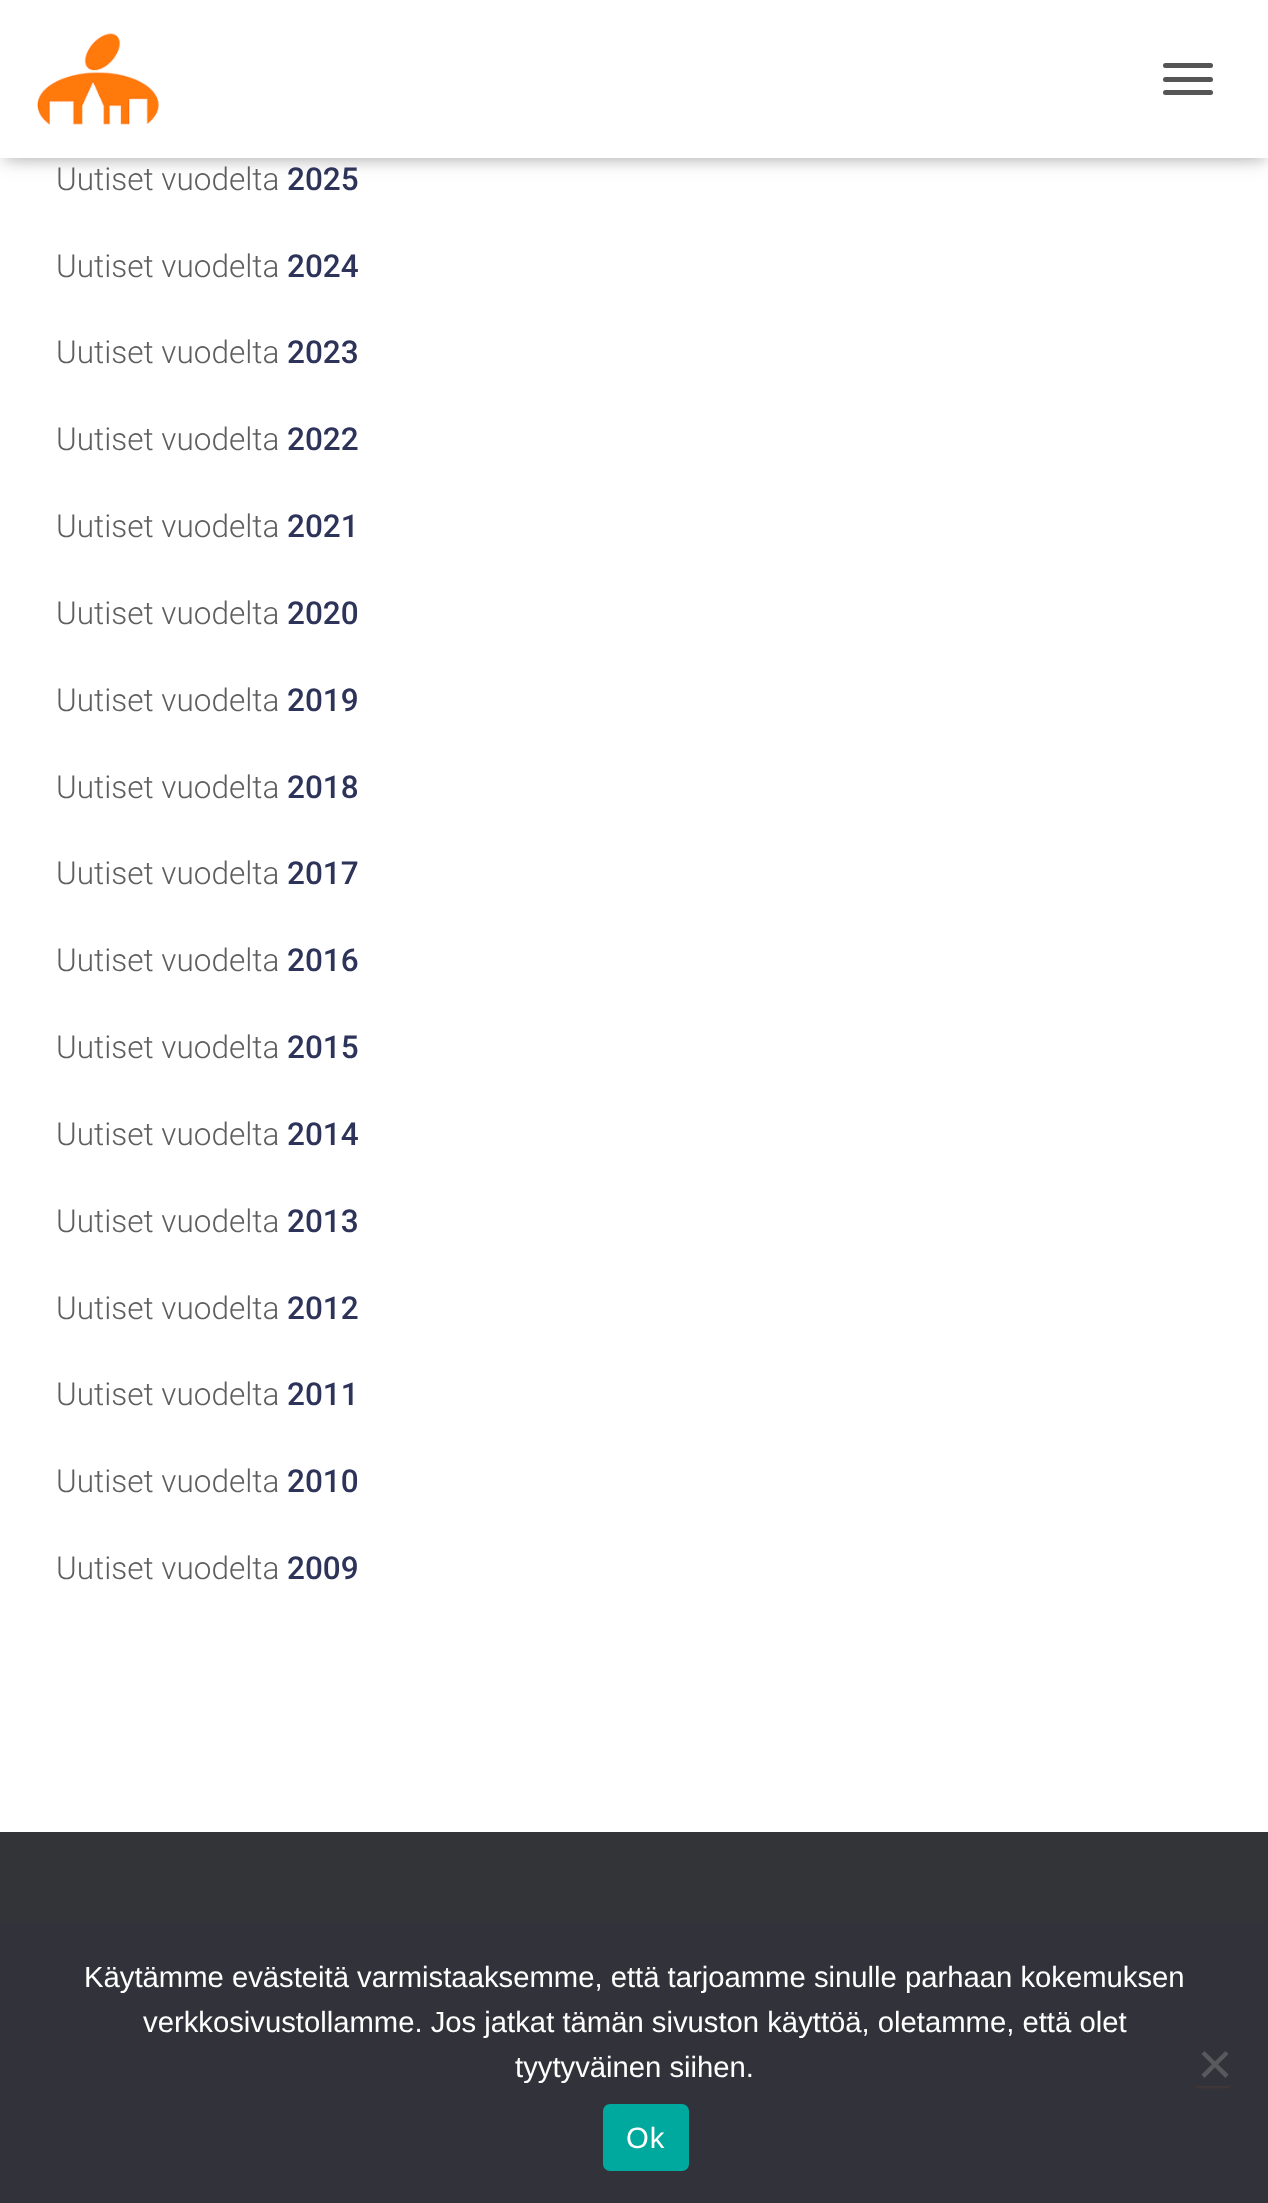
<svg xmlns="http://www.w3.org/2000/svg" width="1268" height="2203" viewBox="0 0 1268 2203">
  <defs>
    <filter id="blur1" x="-50%" y="-200%" width="200%" height="500%"><feGaussianBlur stdDeviation="5.5"/></filter>
    <filter id="blur2" x="-50%" y="-200%" width="200%" height="500%"><feGaussianBlur stdDeviation="11"/></filter>
    <clipPath id="clip1"><path d="M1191 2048H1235V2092H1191ZM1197 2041H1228C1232 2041 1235 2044 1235 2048V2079C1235 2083 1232 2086 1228 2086H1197C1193 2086 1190 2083 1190 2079V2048C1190 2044 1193 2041 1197 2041Z" clip-rule="evenodd"/></clipPath>
    <filter id="blur3" x="-50%" y="-200%" width="200%" height="500%"><feGaussianBlur stdDeviation="1"/></filter>
  </defs>
  <rect width="100%" height="100%" fill="#323437"/>
  <rect x="0" y="158" width="1268" height="1674" fill="#ffffff"/>
  <rect x="5" y="14" width="1260" height="148" fill="#000000" fill-opacity="0.1" filter="url(#blur1)"/>
  <rect x="0" y="2" width="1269" height="158" fill="#000000" fill-opacity="0.12" filter="url(#blur2)"/>
  <rect x="14" y="16" width="1242" height="130" fill="#000000" fill-opacity="0.42" filter="url(#blur2)"/>
  <rect x="0" y="0" width="1268" height="158" fill="#ffffff"/>
  <image x="37" y="33" width="122" height="92" href="img1.png"/>
  <rect x="1163" y="63" width="50" height="5" rx="2.5" fill="#555555"/>
  <rect x="1163" y="77" width="50" height="5" rx="2.5" fill="#555555"/>
  <rect x="1163" y="90" width="50" height="5" rx="2.5" fill="#555555"/>
  <text x="56" y="190" font-family="Roboto" font-size="31.5" font-weight="300" fill="#5e5e5e">Uutiset vuodelta</text>
  <text x="287" y="190" font-family="Roboto" font-size="31.5" font-weight="500" fill="#2d3359">2025</text>
  <text x="56" y="277" font-family="Roboto" font-size="31.5" font-weight="300" fill="#5e5e5e">Uutiset vuodelta</text>
  <text x="287" y="277" font-family="Roboto" font-size="31.5" font-weight="500" fill="#2d3359">2024</text>
  <text x="56" y="363" font-family="Roboto" font-size="31.5" font-weight="300" fill="#5e5e5e">Uutiset vuodelta</text>
  <text x="287" y="363" font-family="Roboto" font-size="31.5" font-weight="500" fill="#2d3359">2023</text>
  <text x="56" y="450" font-family="Roboto" font-size="31.5" font-weight="300" fill="#5e5e5e">Uutiset vuodelta</text>
  <text x="287" y="450" font-family="Roboto" font-size="31.5" font-weight="500" fill="#2d3359">2022</text>
  <text x="56" y="537" font-family="Roboto" font-size="31.5" font-weight="300" fill="#5e5e5e">Uutiset vuodelta</text>
  <text x="287" y="537" font-family="Roboto" font-size="31.5" font-weight="500" fill="#2d3359">2021</text>
  <text x="56" y="624" font-family="Roboto" font-size="31.5" font-weight="300" fill="#5e5e5e">Uutiset vuodelta</text>
  <text x="287" y="624" font-family="Roboto" font-size="31.5" font-weight="500" fill="#2d3359">2020</text>
  <text x="56" y="711" font-family="Roboto" font-size="31.5" font-weight="300" fill="#5e5e5e">Uutiset vuodelta</text>
  <text x="287" y="711" font-family="Roboto" font-size="31.5" font-weight="500" fill="#2d3359">2019</text>
  <text x="56" y="798" font-family="Roboto" font-size="31.5" font-weight="300" fill="#5e5e5e">Uutiset vuodelta</text>
  <text x="287" y="798" font-family="Roboto" font-size="31.5" font-weight="500" fill="#2d3359">2018</text>
  <text x="56" y="884" font-family="Roboto" font-size="31.5" font-weight="300" fill="#5e5e5e">Uutiset vuodelta</text>
  <text x="287" y="884" font-family="Roboto" font-size="31.5" font-weight="500" fill="#2d3359">2017</text>
  <text x="56" y="971" font-family="Roboto" font-size="31.5" font-weight="300" fill="#5e5e5e">Uutiset vuodelta</text>
  <text x="287" y="971" font-family="Roboto" font-size="31.5" font-weight="500" fill="#2d3359">2016</text>
  <text x="56" y="1058" font-family="Roboto" font-size="31.5" font-weight="300" fill="#5e5e5e">Uutiset vuodelta</text>
  <text x="287" y="1058" font-family="Roboto" font-size="31.5" font-weight="500" fill="#2d3359">2015</text>
  <text x="56" y="1145" font-family="Roboto" font-size="31.5" font-weight="300" fill="#5e5e5e">Uutiset vuodelta</text>
  <text x="287" y="1145" font-family="Roboto" font-size="31.5" font-weight="500" fill="#2d3359">2014</text>
  <text x="56" y="1232" font-family="Roboto" font-size="31.5" font-weight="300" fill="#5e5e5e">Uutiset vuodelta</text>
  <text x="287" y="1232" font-family="Roboto" font-size="31.5" font-weight="500" fill="#2d3359">2013</text>
  <text x="56" y="1319" font-family="Roboto" font-size="31.5" font-weight="300" fill="#5e5e5e">Uutiset vuodelta</text>
  <text x="287" y="1319" font-family="Roboto" font-size="31.5" font-weight="500" fill="#2d3359">2012</text>
  <text x="56" y="1405" font-family="Roboto" font-size="31.5" font-weight="300" fill="#5e5e5e">Uutiset vuodelta</text>
  <text x="287" y="1405" font-family="Roboto" font-size="31.5" font-weight="500" fill="#2d3359">2011</text>
  <text x="56" y="1492" font-family="Roboto" font-size="31.5" font-weight="300" fill="#5e5e5e">Uutiset vuodelta</text>
  <text x="287" y="1492" font-family="Roboto" font-size="31.5" font-weight="500" fill="#2d3359">2010</text>
  <text x="56" y="1579" font-family="Roboto" font-size="31.5" font-weight="300" fill="#5e5e5e">Uutiset vuodelta</text>
  <text x="287" y="1579" font-family="Roboto" font-size="31.5" font-weight="500" fill="#2d3359">2009</text>
  <rect x="0" y="1922" width="1268" height="281" fill="#32323a"/>
  <text x="84" y="1987" font-family="Liberation Sans" font-size="29.25" fill="#ffffff">Käytämme evästeitä varmistaaksemme, että tarjoamme sinulle parhaan kokemuksen</text>
  <text x="143" y="2032" font-family="Liberation Sans" font-size="29.25" fill="#ffffff">verkkosivustollamme. Jos jatkat tämän sivuston käyttöä, oletamme, että olet</text>
  <text x="515" y="2077" font-family="Liberation Sans" font-size="29.25" fill="#ffffff">tyytyväinen siihen.</text>
  <g clip-path="url(#clip1)">
    <rect x="1195" y="2052" width="36" height="36" rx="2" fill="#844926" fill-opacity="0.2" filter="url(#blur3)"/>
  </g>
  <path d="M1225.5 2051L1228.5 2054L1204.5 2078L1201.5 2074.5Z" fill="#59595d"/>
  <path d="M1201.5 2054L1204.5 2051L1228.5 2074.5L1225.5 2078Z" fill="#59595d"/>
  <rect x="603" y="2104" width="86" height="67" rx="7" fill="#00a99d"/>
  <text x="626" y="2148" font-family="Liberation Sans" font-size="29.25" letter-spacing="1" fill="#ffffff">Ok</text>
</svg>
